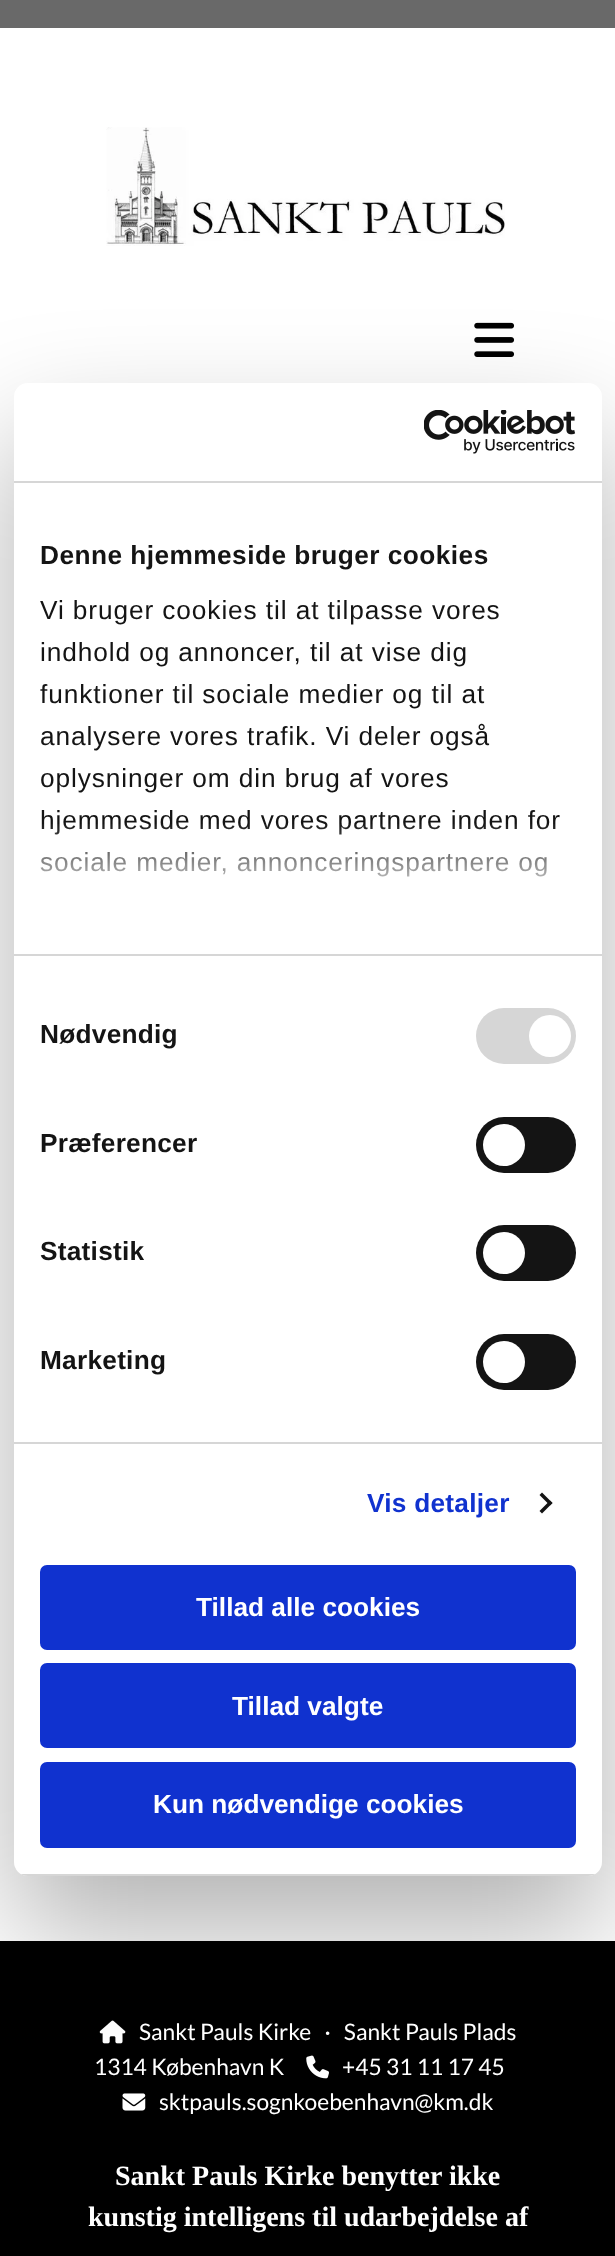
<svg xmlns="http://www.w3.org/2000/svg" width="615" height="2256" viewBox="0 0 615 2256">
  <defs>
    <filter id="blur1" x="-50%" y="-200%" width="200%" height="500%"><feGaussianBlur stdDeviation="59.5"/></filter>
    <linearGradient id="g1" gradientUnits="userSpaceOnUse" x1="297" y1="953" x2="297" y2="822"><stop offset="0" stop-color="#ffffff"/><stop offset="0.5" stop-color="#ffffff" stop-opacity="0.8"/><stop offset="1" stop-color="#ffffff" stop-opacity="0"/></linearGradient>
    <clipPath id="clip1"><rect x="14" y="383" width="588" height="1493" rx="14"/></clipPath>
  </defs>
  <rect width="100%" height="100%" fill="#696969"/>
  <rect x="0" y="28" width="615" height="1913" fill="#ffffff"/>
  <image x="474" y="322" width="41" height="35" href="img3.png"/>
  <rect x="0" y="1941" width="615" height="315" fill="#000000"/>
  <image x="99" y="2020" width="27" height="24" href="img4.png"/>
  <image x="306" y="2055" width="23" height="24" href="img5.png"/>
  <image x="122" y="2093" width="24" height="18" href="img6.png"/>
  <rect x="14" y="439" width="588" height="1493" rx="14" fill="#000000" fill-opacity="0.3" filter="url(#blur1)"/>
  <rect x="14" y="383" width="588" height="1493" rx="14" fill="#ffffff"/>
  <rect x="14" y="481" width="588" height="2" fill="#d6d6d6"/>
  <image x="424" y="410" width="152" height="44" href="img1.png"/>
  <rect x="14" y="954" width="588" height="2" fill="#d6d6d6"/>
  <text x="40" y="564" font-family="Liberation Sans" font-size="26.25" font-weight="bold" letter-spacing="0.45" fill="#141414">Denne hjemmeside bruger cookies</text>
  <text x="40" y="619" font-family="Liberation Sans" font-size="26.25" letter-spacing="0.9" fill="#141414">Vi bruger cookies til at tilpasse vores</text>
  <text x="40" y="661" font-family="Liberation Sans" font-size="26.25" letter-spacing="0.9" fill="#141414">indhold og annoncer, til at vise dig</text>
  <text x="40" y="703" font-family="Liberation Sans" font-size="26.25" letter-spacing="0.9" fill="#141414">funktioner til sociale medier og til at</text>
  <text x="40" y="745" font-family="Liberation Sans" font-size="26.25" letter-spacing="0.9" fill="#141414">analysere vores trafik. Vi deler også</text>
  <text x="40" y="787" font-family="Liberation Sans" font-size="26.25" letter-spacing="0.9" fill="#141414">oplysninger om din brug af vores</text>
  <text x="40" y="829" font-family="Liberation Sans" font-size="26.25" letter-spacing="0.9" fill="#141414">hjemmeside med vores partnere inden for</text>
  <text x="40" y="871" font-family="Liberation Sans" font-size="26.25" letter-spacing="0.9" fill="#141414">sociale medier, annonceringspartnere og</text>
  <rect x="41" y="824" width="514" height="53" fill="url(#g1)"/>
  <rect x="14" y="1442" width="588" height="2" fill="#d6d6d6"/>
  <text x="40" y="1043" font-family="Liberation Sans" font-size="26.25" font-weight="bold" letter-spacing="0.25" fill="#141414">Nødvendig</text>
  <rect x="476" y="1008" width="100" height="56" rx="28" fill="#d6d6d6"/>
  <circle cx="550" cy="1036" r="21" fill="#ffffff"/>
  <text x="40" y="1152" font-family="Liberation Sans" font-size="26.25" font-weight="bold" letter-spacing="0.25" fill="#141414">Præferencer</text>
  <rect x="476" y="1117" width="100" height="56" rx="28" fill="#141414"/>
  <circle cx="504" cy="1145" r="21" fill="#ffffff"/>
  <text x="40" y="1260" font-family="Liberation Sans" font-size="26.25" font-weight="bold" letter-spacing="0.25" fill="#141414">Statistik</text>
  <rect x="476" y="1225" width="100" height="56" rx="28" fill="#141414"/>
  <circle cx="504" cy="1253" r="21" fill="#ffffff"/>
  <text x="40" y="1369" font-family="Liberation Sans" font-size="26.25" font-weight="bold" letter-spacing="0.25" fill="#141414">Marketing</text>
  <rect x="476" y="1334" width="100" height="56" rx="28" fill="#141414"/>
  <circle cx="504" cy="1362" r="21" fill="#ffffff"/>
  <text x="367" y="1512" font-family="Liberation Sans" font-size="26.25" font-weight="bold" letter-spacing="0.25" fill="#1032cf">Vis detaljer</text>
  <path d="M542 1492.5L552.5 1503L550 1505.5L539.5 1495Z" fill="#141414"/>
  <path d="M550 1500.5L552.5 1503L542 1513.5L539.5 1511Z" fill="#141414"/>
  <g clip-path="url(#clip1)">
    <rect x="14" y="1874" width="588" height="2" fill="#d6d6d6"/>
  </g>
  <rect x="42" y="1567" width="532" height="81" rx="5" fill="#1032cf" stroke="#1032cf" stroke-width="4"/>
  <text x="196" y="1616" font-family="Liberation Sans" font-size="26.25" font-weight="bold" fill="#ffffff">Tillad alle cookies</text>
  <rect x="42" y="1665" width="532" height="81" rx="5" fill="#1032cf" stroke="#1032cf" stroke-width="4"/>
  <text x="232" y="1715" font-family="Liberation Sans" font-size="26.25" font-weight="bold" fill="#ffffff">Tillad valgte</text>
  <rect x="42" y="1764" width="532" height="82" rx="5" fill="#1032cf" stroke="#1032cf" stroke-width="4"/>
  <text x="153" y="1813" font-family="Liberation Sans" font-size="26.25" font-weight="bold" fill="#ffffff">Kun nødvendige cookies</text>
  <image x="106" y="127" width="399" height="119" href="img2.png"/>
  <text x="139" y="2040" font-family="Lato" font-size="22.75" fill="#ffffff" xml:space="preserve">Sankt Pauls Kirke   ·   Sankt Pauls Plads</text>
  <text x="94" y="2075" font-family="Lato" font-size="22.75" fill="#ffffff">1314 København K</text>
  <text x="342" y="2075" font-family="Lato" font-size="22.75" fill="#ffffff">+45 31 11 17 45</text>
  <text x="159" y="2110" font-family="Lato" font-size="22.75" fill="#ffffff">sktpauls.sognkoebenhavn@km.dk</text>
  <text x="115" y="2185" font-family="Liberation Serif" font-size="28" font-weight="bold" fill="#ffffff">Sankt Pauls Kirke benytter ikke</text>
  <text x="88" y="2226" font-family="Liberation Serif" font-size="28" font-weight="bold" fill="#ffffff">kunstig intelligens til udarbejdelse af</text>
</svg>
